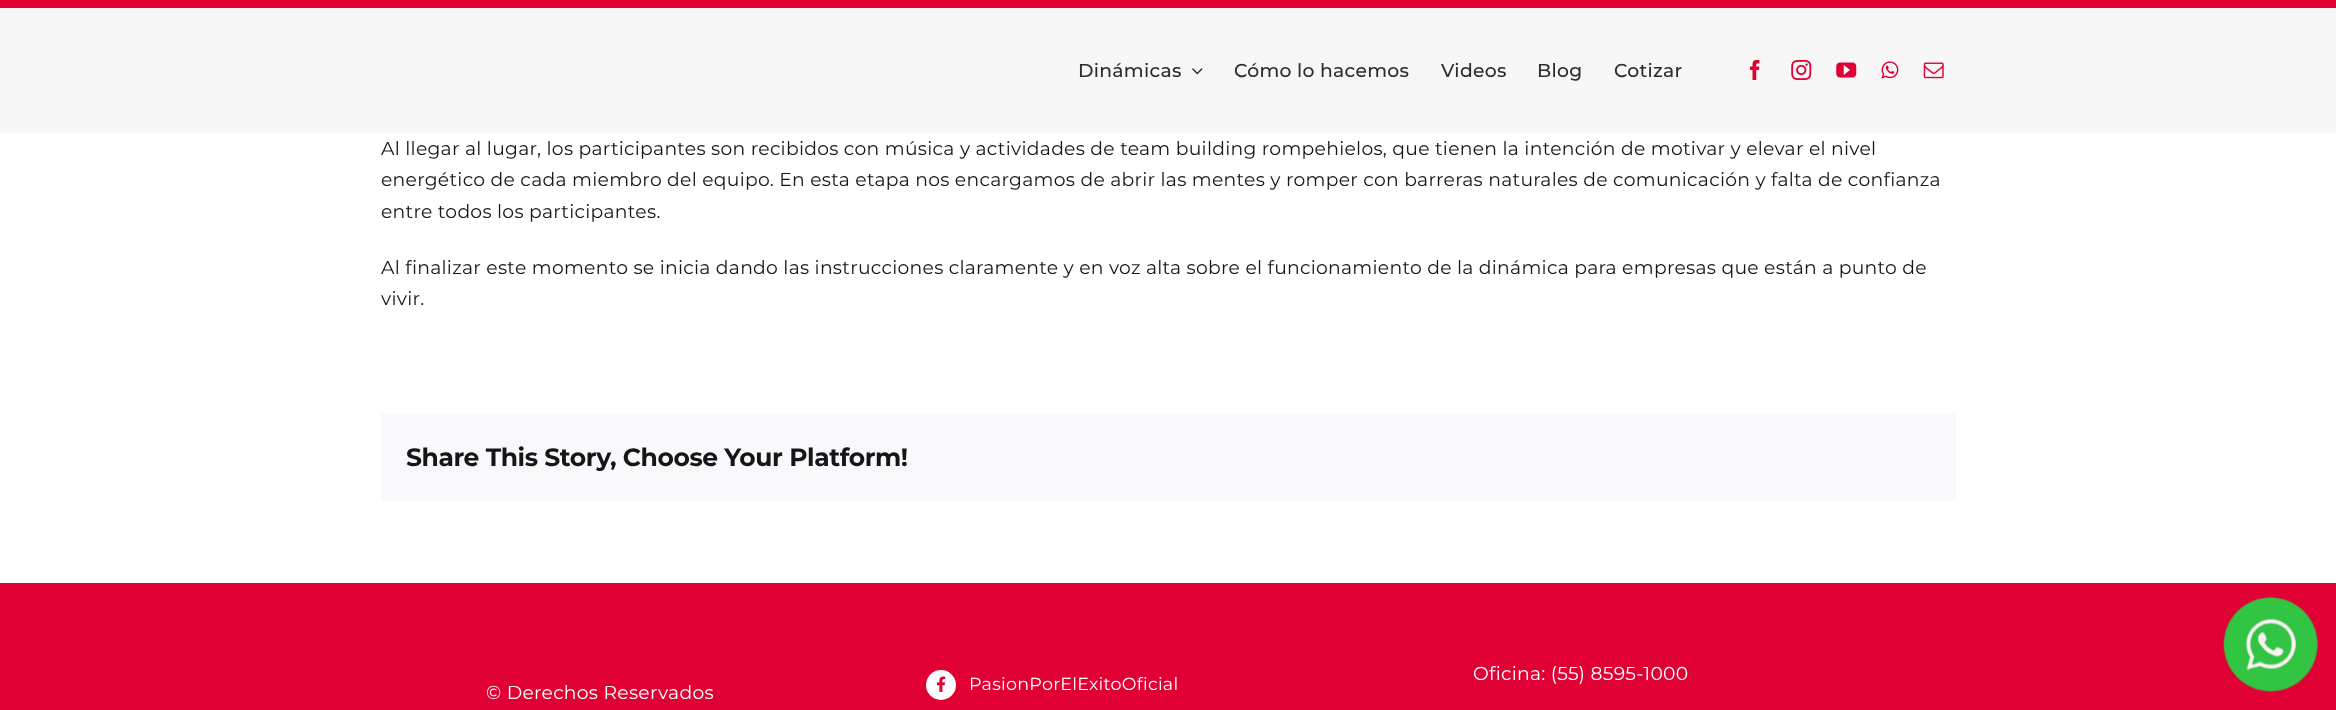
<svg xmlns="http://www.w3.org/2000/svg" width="2336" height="710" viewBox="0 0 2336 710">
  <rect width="100%" height="100%" fill="#ffffff"/>
  <rect x="0" y="8" width="2336" height="125" fill="#f7f7f7"/>
  <rect x="0" y="0" width="2336" height="8" fill="#e00034"/>
  <text x="1078" y="77" font-family="Montserrat" font-size="18.75" font-weight="500" letter-spacing="0.28" fill="#2c2b30">Dinámicas</text>
  <image x="1192" y="68" width="11" height="7" href="img1.png"/>
  <text x="1234" y="77" font-family="Montserrat" font-size="18.75" font-weight="500" letter-spacing="0.28" fill="#2c2b30">Cómo lo hacemos</text>
  <text x="1441" y="77" font-family="Montserrat" font-size="18.75" font-weight="500" letter-spacing="0.28" fill="#2c2b30">Videos</text>
  <text x="1537" y="77" font-family="Montserrat" font-size="18.75" font-weight="500" letter-spacing="0.28" fill="#2c2b30">Blog</text>
  <text x="1614" y="77" font-family="Montserrat" font-size="18.75" font-weight="500" letter-spacing="0.28" fill="#2c2b30">Cotizar</text>
  <image x="1750" y="60" width="10" height="20" href="img2.png"/>
  <image x="1791" y="60" width="21" height="20" href="img3.png"/>
  <image x="1836" y="62" width="21" height="16" href="img4.png"/>
  <image x="1881" y="61" width="18" height="18" href="img5.png"/>
  <image x="1923" y="62" width="21" height="17" href="img6.png"/>
  <text x="381" y="155" font-family="Montserrat" font-size="18.75" letter-spacing="0.28" fill="#141617">Al llegar al lugar, los participantes son recibidos con música y actividades de team building rompehielos, que tienen la intención de motivar y elevar el nivel</text>
  <text x="381" y="186" font-family="Montserrat" font-size="18.75" letter-spacing="0.28" fill="#141617">energético de cada miembro del equipo. En esta etapa nos encargamos de abrir las mentes y romper con barreras naturales de comunicación y falta de confianza</text>
  <text x="381" y="218" font-family="Montserrat" font-size="18.75" letter-spacing="0.28" fill="#141617">entre todos los participantes.</text>
  <text x="381" y="274" font-family="Montserrat" font-size="18.75" letter-spacing="0.28" fill="#141617">Al finalizar este momento se inicia dando las instrucciones claramente y en voz alta sobre el funcionamiento de la dinámica para empresas que están a punto de</text>
  <text x="381" y="305" font-family="Montserrat" font-size="18.75" letter-spacing="0.28" fill="#141617">vivir.</text>
  <rect x="381" y="414" width="1575" height="87" fill="#f9f9fb"/>
  <text x="406" y="466" font-family="Montserrat" font-size="25" font-weight="bold" letter-spacing="-0.4" fill="#141617">Share This Story, Choose Your Platform!</text>
  <rect x="0" y="583" width="2336" height="127" fill="#e00034"/>
  <circle cx="941" cy="685" r="15" fill="#ffffff"/>
  <image x="936" y="676" width="10" height="16" href="img7.png"/>
  <text x="969" y="690" font-family="Montserrat" font-size="17.5" letter-spacing="0.28" fill="#ffffff">PasionPorElExitoOficial</text>
  <text x="1473" y="680" font-family="Montserrat" font-size="18.75" letter-spacing="0.28" fill="#ffffff">Oficina: (55) 8595-1000</text>
  <text x="486" y="699" font-family="Montserrat" font-size="18.75" letter-spacing="0.28" fill="#ffffff">© Derechos Reservados</text>
  <image x="2223" y="597" width="95" height="95" href="img8.png"/>
</svg>
